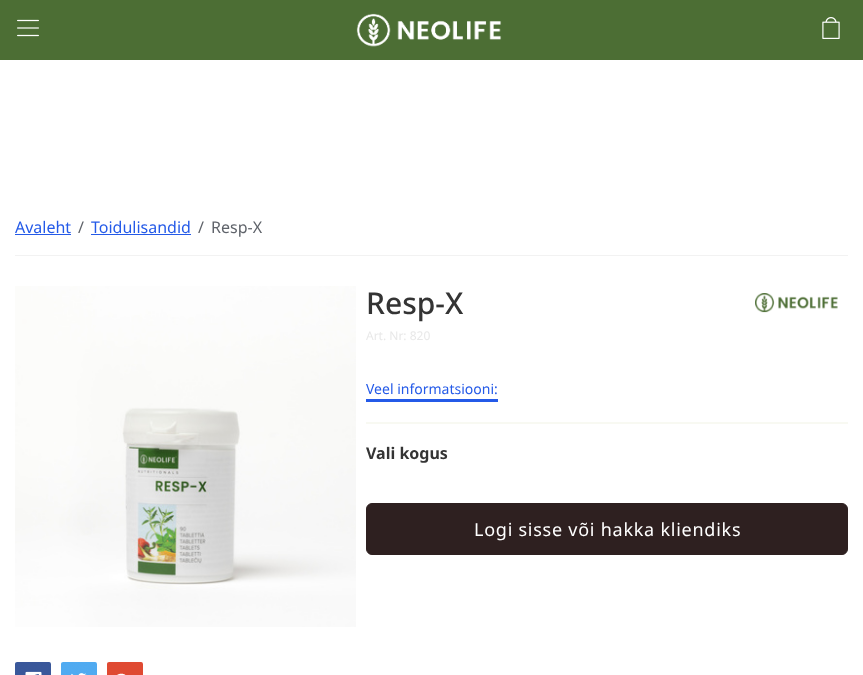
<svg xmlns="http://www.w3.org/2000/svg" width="863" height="675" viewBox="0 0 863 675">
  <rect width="100%" height="100%" fill="#ffffff"/>
  <rect x="0" y="0" width="863" height="60" fill="#4c6e34"/>
  <image x="17" y="19" width="22" height="18" href="img1.png"/>
  <image x="822" y="17" width="18" height="22" href="img2.png"/>
  <image x="356" y="13" width="146" height="34" href="img3.png"/>
  <rect x="15" y="255" width="833" height="1" fill="#f2f2f2"/>
  <text x="15" y="233" font-family="Noto Sans" font-size="16" fill="#245ae8">Avaleht</text>
  <rect x="15" y="234" width="56" height="1" fill="#245ae8"/>
  <text x="78" y="233" font-family="Noto Sans" font-size="16" fill="#5f636a">/</text>
  <text x="91" y="233" font-family="Noto Sans" font-size="16" fill="#245ae8">Toidulisandid</text>
  <rect x="91" y="234" width="100" height="1" fill="#245ae8"/>
  <text x="198" y="233" font-family="Noto Sans" font-size="16" fill="#5f636a">/</text>
  <text x="211" y="233" font-family="Noto Sans" font-size="16" fill="#5f636a">Resp-X</text>
  <image x="15" y="286" width="341" height="341" href="img4.png"/>
  <image x="15" y="662" width="36" height="13" href="img5.png"/>
  <image x="61" y="662" width="36" height="13" href="img6.png"/>
  <image x="107" y="662" width="36" height="13" href="img7.png"/>
  <text x="366" y="314" font-family="Noto Sans" font-size="30" font-weight="500" fill="#343434">Resp-X</text>
  <image x="755" y="293" width="83" height="20" href="img8.png"/>
  <text x="366" y="340" font-family="Noto Sans" font-size="12" fill="#e8e8e8">Art. Nr: 820</text>
  <rect x="366" y="399" width="132" height="3" fill="#245ae8"/>
  <text x="366" y="394" font-family="Noto Sans" font-size="14" fill="#245ae8">Veel informatsiooni:</text>
  <rect x="366" y="422" width="482" height="2" fill="#f8f9f2"/>
  <text x="366" y="459" font-family="Noto Sans" font-size="16" font-weight="bold" fill="#343434">Vali kogus</text>
  <rect x="366.5" y="503.5" width="481" height="51" rx="5.5" fill="#2e2020" stroke="#2e2020"/>
  <text x="474" y="536" font-family="Noto Sans" font-size="18" letter-spacing="0.75" fill="#ffffff">Logi sisse või hakka kliendiks</text>
</svg>
